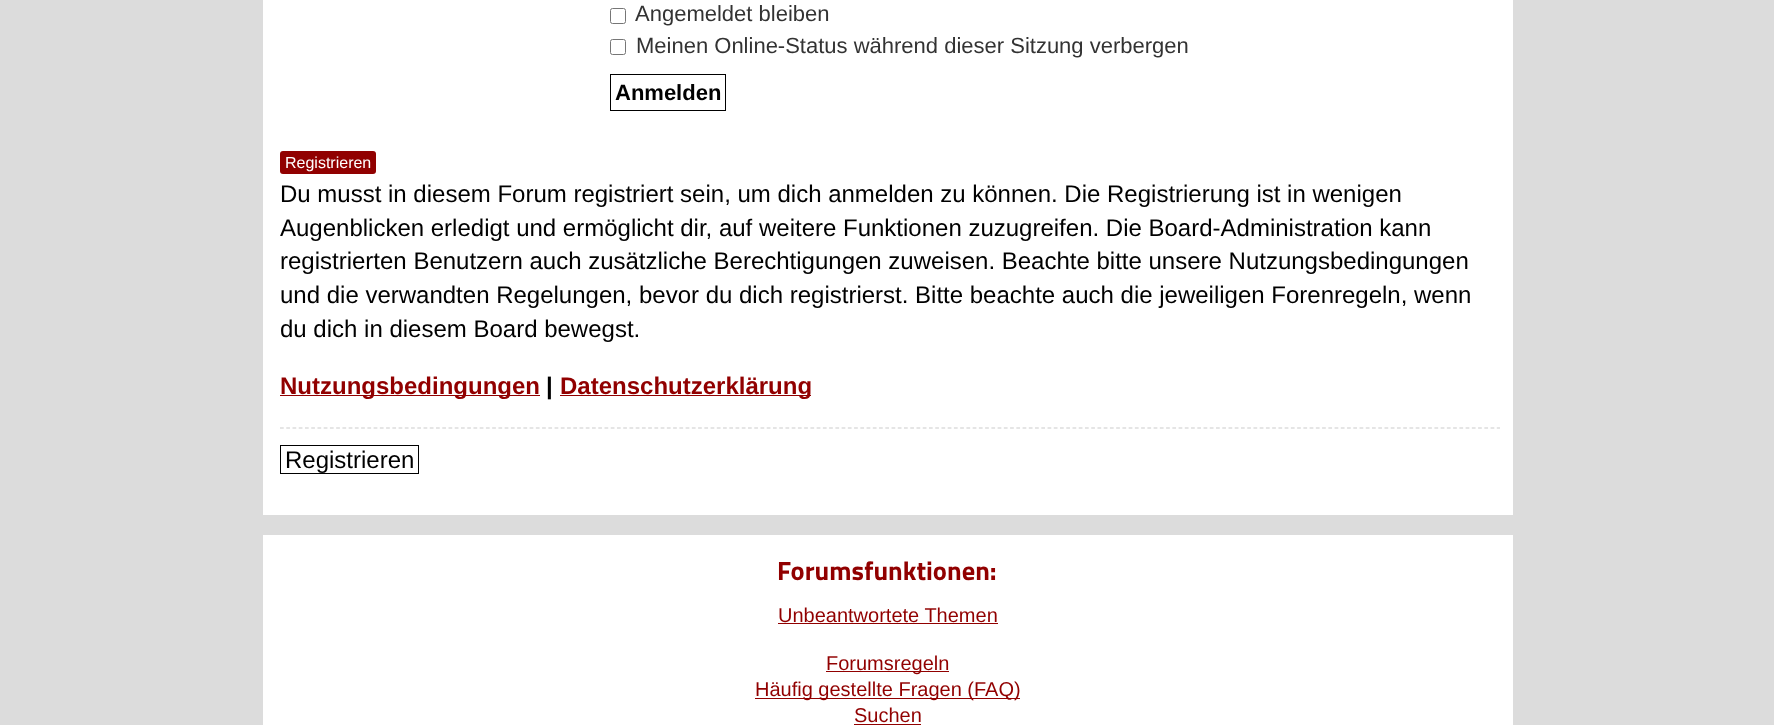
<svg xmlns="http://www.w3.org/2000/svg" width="1774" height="725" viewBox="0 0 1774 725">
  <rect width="100%" height="100%" fill="#dcdcdc"/>
  <rect x="263" y="0" width="1250" height="515" fill="#ffffff"/>
  <rect x="610.5" y="8.5" width="15" height="15" rx="2" fill="none" stroke="#767676"/>
  <text x="635" y="21" font-family="Liberation Sans" font-size="22" fill="#333333">Angemeldet bleiben</text>
  <rect x="610.5" y="39.5" width="15" height="15" rx="2" fill="none" stroke="#767676"/>
  <text x="636" y="53" font-family="Liberation Sans" font-size="22" fill="#333333">Meinen Online-Status während dieser Sitzung verbergen</text>
  <rect x="610.5" y="74.5" width="115" height="36" fill="none" stroke="#000000"/>
  <text x="615" y="100" font-family="Liberation Sans" font-size="22" font-weight="bold" fill="#000000">Anmelden</text>
  <rect x="280" y="151" width="96" height="23" rx="3" fill="#910000"/>
  <text x="285" y="168" font-family="Liberation Sans" font-size="16" fill="#ffffff">Registrieren</text>
  <text x="280" y="202" font-family="Liberation Sans" font-size="24" fill="#000000">Du musst in diesem Forum registriert sein, um dich anmelden zu können. Die Registrierung ist in wenigen</text>
  <text x="280" y="236" font-family="Liberation Sans" font-size="24" fill="#000000">Augenblicken erledigt und ermöglicht dir, auf weitere Funktionen zuzugreifen. Die Board-Administration kann</text>
  <text x="280" y="269" font-family="Liberation Sans" font-size="24" fill="#000000">registrierten Benutzern auch zusätzliche Berechtigungen zuweisen. Beachte bitte unsere Nutzungsbedingungen</text>
  <text x="280" y="303" font-family="Liberation Sans" font-size="24" fill="#000000">und die verwandten Regelungen, bevor du dich registrierst. Bitte beachte auch die jeweiligen Forenregeln, wenn</text>
  <text x="280" y="337" font-family="Liberation Sans" font-size="24" fill="#000000">du dich in diesem Board bewegst.</text>
  <rect x="280" y="395" width="260" height="1" fill="#910000"/>
  <text x="280" y="394" font-family="Liberation Sans" font-size="24" font-weight="bold" fill="#910000">Nutzungsbedingungen</text>
  <text x="546" y="394" font-family="Liberation Sans" font-size="24" font-weight="bold" fill="#000000">|</text>
  <rect x="560" y="395" width="251" height="1" fill="#910000"/>
  <text x="560" y="394" font-family="Liberation Sans" font-size="24" font-weight="bold" fill="#910000">Datenschutzerklärung</text>
  <path d="M280 428H1500" fill="none" stroke="#cccccc" stroke-width="1.2" stroke-dasharray="3.75 2.49"/>
  <rect x="280.5" y="445.5" width="138" height="28" fill="none" stroke="#000000"/>
  <text x="285" y="468" font-family="Liberation Sans" font-size="24" fill="#000000">Registrieren</text>
  <rect x="263" y="535" width="1250" height="190" fill="#ffffff"/>
  <text x="777" y="580" font-family="Titillium Web" font-size="26.5" font-weight="bold" fill="#910000">Forumsfunktionen:</text>
  <text x="778" y="622" font-family="Liberation Sans" font-size="20" fill="#910000">Unbeantwortete Themen</text>
  <rect x="778" y="623" width="220" height="1" fill="#910000"/>
  <rect x="826" y="671" width="123" height="1" fill="#910000"/>
  <text x="826" y="670" font-family="Liberation Sans" font-size="20" fill="#910000">Forumsregeln</text>
  <rect x="755" y="698" width="265" height="1" fill="#910000"/>
  <text x="755" y="696" font-family="Liberation Sans" font-size="20" fill="#910000">Häufig gestellte Fragen (FAQ)</text>
  <text x="854" y="722" font-family="Liberation Sans" font-size="20" fill="#910000">Suchen</text>
  <rect x="854" y="724" width="67" height="1" fill="#910000"/>
</svg>
